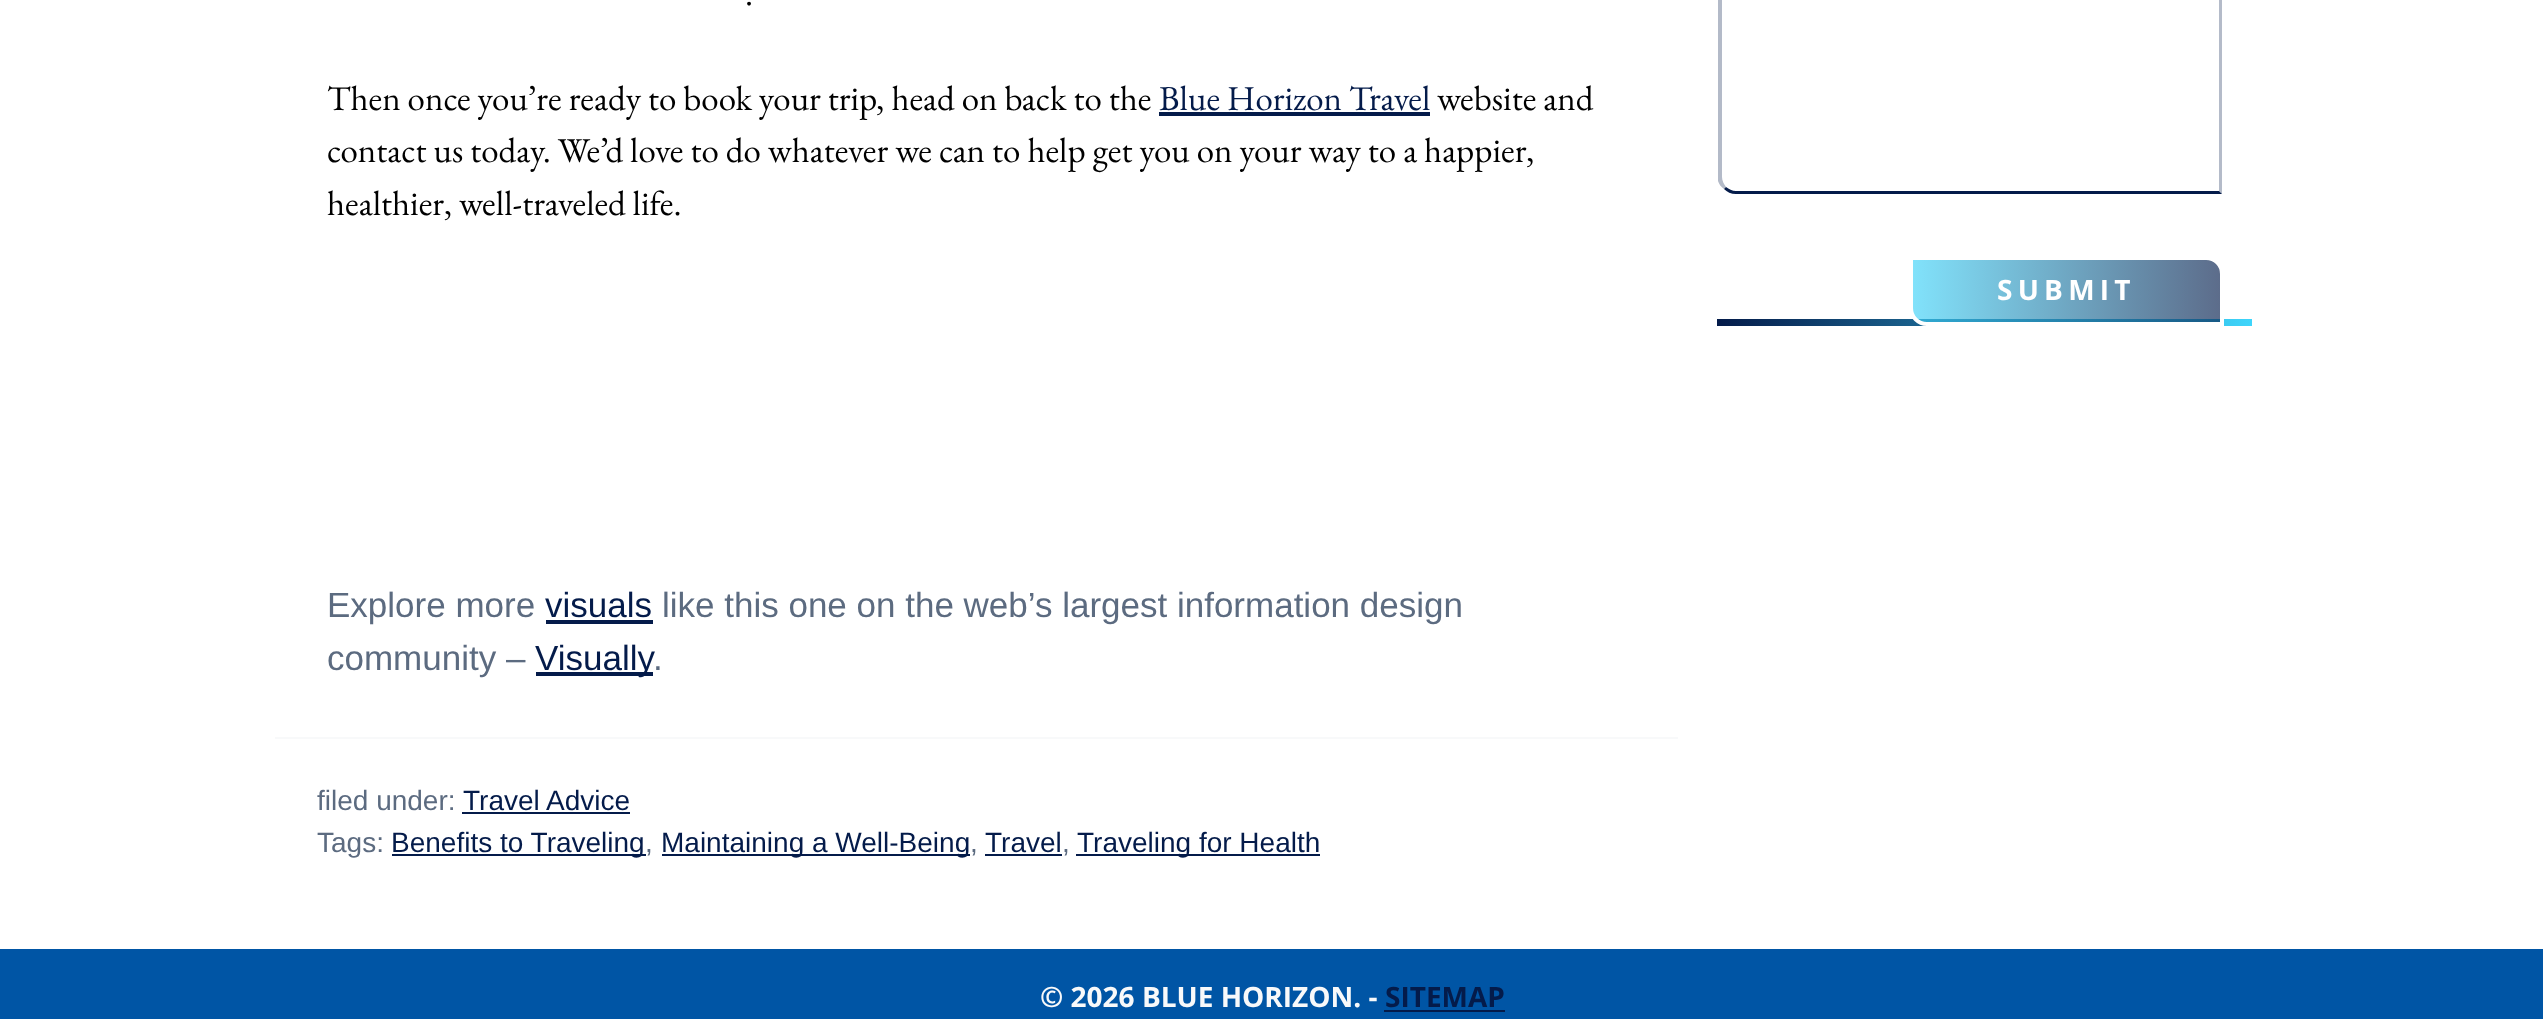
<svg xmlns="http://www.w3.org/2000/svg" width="2543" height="1019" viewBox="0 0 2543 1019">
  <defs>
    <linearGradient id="g1" gradientUnits="userSpaceOnUse" x1="1717" y1="322" x2="2252" y2="322"><stop offset="0" stop-color="#041b4a"/><stop offset="1" stop-color="#3ed5fb"/></linearGradient>
    <linearGradient id="g2" gradientUnits="userSpaceOnUse" x1="1909" y1="291" x2="2224" y2="291"><stop offset="0" stop-color="#3ed5fb" stop-opacity="0.65"/><stop offset="1" stop-color="#041b4a" stop-opacity="0.65"/></linearGradient>
  </defs>
  <rect width="100%" height="100%" fill="#ffffff"/>
  <text x="745" y="5" font-family="EB Garamond" font-size="35" fill="#000000">.</text>
  <text x="327" y="110" font-family="EB Garamond" font-size="35" fill="#000000">Then once you’re ready to book your trip, head on back to the</text>
  <text x="1159" y="110" font-family="EB Garamond" font-size="35" fill="#041b4a">Blue Horizon Travel</text>
  <rect x="1159" y="112" width="271" height="4" fill="#041b4a"/>
  <text x="1437" y="110" font-family="EB Garamond" font-size="35" fill="#000000">website and</text>
  <text x="327" y="162" font-family="EB Garamond" font-size="35" fill="#000000">contact us today. We’d love to do whatever we can to help get you on your way to a happier,</text>
  <text x="327" y="215" font-family="EB Garamond" font-size="35" fill="#000000">healthier, well-traveled life.</text>
  <text x="327" y="617" font-family="Liberation Sans" font-size="35" fill="#5c6b80">Explore more</text>
  <text x="545" y="617" font-family="Liberation Sans" font-size="35" fill="#041b4a">visuals</text>
  <rect x="546" y="620" width="107" height="4" fill="#041b4a"/>
  <text x="662" y="617" font-family="Liberation Sans" font-size="35" fill="#5c6b80">like this one on the web’s largest information design</text>
  <text x="327" y="670" font-family="Liberation Sans" font-size="35" fill="#5c6b80">community –</text>
  <rect x="536" y="672" width="117" height="4" fill="#041b4a"/>
  <text x="535" y="670" font-family="Liberation Sans" font-size="35" fill="#041b4a">Visually</text>
  <text x="653" y="670" font-family="Liberation Sans" font-size="35" fill="#5c6b80">.</text>
  <rect x="275" y="737" width="1403" height="2" fill="#f8f9fa"/>
  <text x="317" y="810" font-family="Liberation Sans" font-size="28" fill="#5c6b80">filed under:</text>
  <text x="463" y="810" font-family="Liberation Sans" font-size="28" fill="#041b4a">Travel Advice</text>
  <rect x="462" y="812" width="168" height="2" fill="#041b4a"/>
  <text x="317" y="852" font-family="Liberation Sans" font-size="28" fill="#5c6b80">Tags:</text>
  <rect x="392" y="854" width="254" height="2" fill="#041b4a"/>
  <text x="391" y="852" font-family="Liberation Sans" font-size="28" fill="#041b4a">Benefits to Traveling</text>
  <text x="645" y="852" font-family="Liberation Sans" font-size="28" fill="#5c6b80">,</text>
  <rect x="662" y="854" width="308" height="2" fill="#041b4a"/>
  <text x="661" y="852" font-family="Liberation Sans" font-size="28" fill="#041b4a">Maintaining a Well-Being</text>
  <text x="970" y="852" font-family="Liberation Sans" font-size="28" fill="#5c6b80">,</text>
  <text x="985" y="852" font-family="Liberation Sans" font-size="28" fill="#041b4a">Travel</text>
  <rect x="985" y="854" width="77" height="2" fill="#041b4a"/>
  <text x="1062" y="852" font-family="Liberation Sans" font-size="28" fill="#5c6b80">,</text>
  <rect x="1076" y="854" width="244" height="2" fill="#041b4a"/>
  <text x="1077" y="852" font-family="Liberation Sans" font-size="28" fill="#041b4a">Traveling for Health</text>
  <path d="M2217-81C2220-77 2222-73 2222-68V194L2219 191V-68C2219-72 2217-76 2215-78Z" fill="#b4bbc9"/>
  <path d="M2222 194H1736C1731 194 1727 192 1724 189L1726 187C1729 189 1732 191 1736 191H2219Z" fill="#041b4a"/>
  <path d="M1722-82V177C1722 181 1724 184 1726 187L1724 189C1721 187 1719 184 1718 181V-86Z" fill="#041b4a" fill-opacity="0.3"/>
  <rect x="1717" y="319" width="535" height="7" fill="url(#g1)"/>
  <path d="M1911 258H2206C2215 258 2222 265 2222 274V324H1927C1918 324 1911 317 1911 308Z" fill="url(#g2)" stroke="#ffffff" stroke-width="4"/>
  <text x="1997" y="300" font-family="Open Sans" font-size="28" font-weight="bold" letter-spacing="5.25" fill="#ffffff">SUBMIT</text>
  <rect x="0" y="949" width="2543" height="70" fill="#0055a5"/>
  <text x="1040" y="1007" font-family="Open Sans" font-size="28" font-weight="bold" fill="#f8f9fa">© 2026 BLUE HORIZON. -</text>
  <text x="1385" y="1007" font-family="Open Sans" font-size="28" font-weight="bold" fill="#041b4a">SITEMAP</text>
  <rect x="1384" y="1010" width="121" height="2" fill="#041b4a"/>
</svg>
